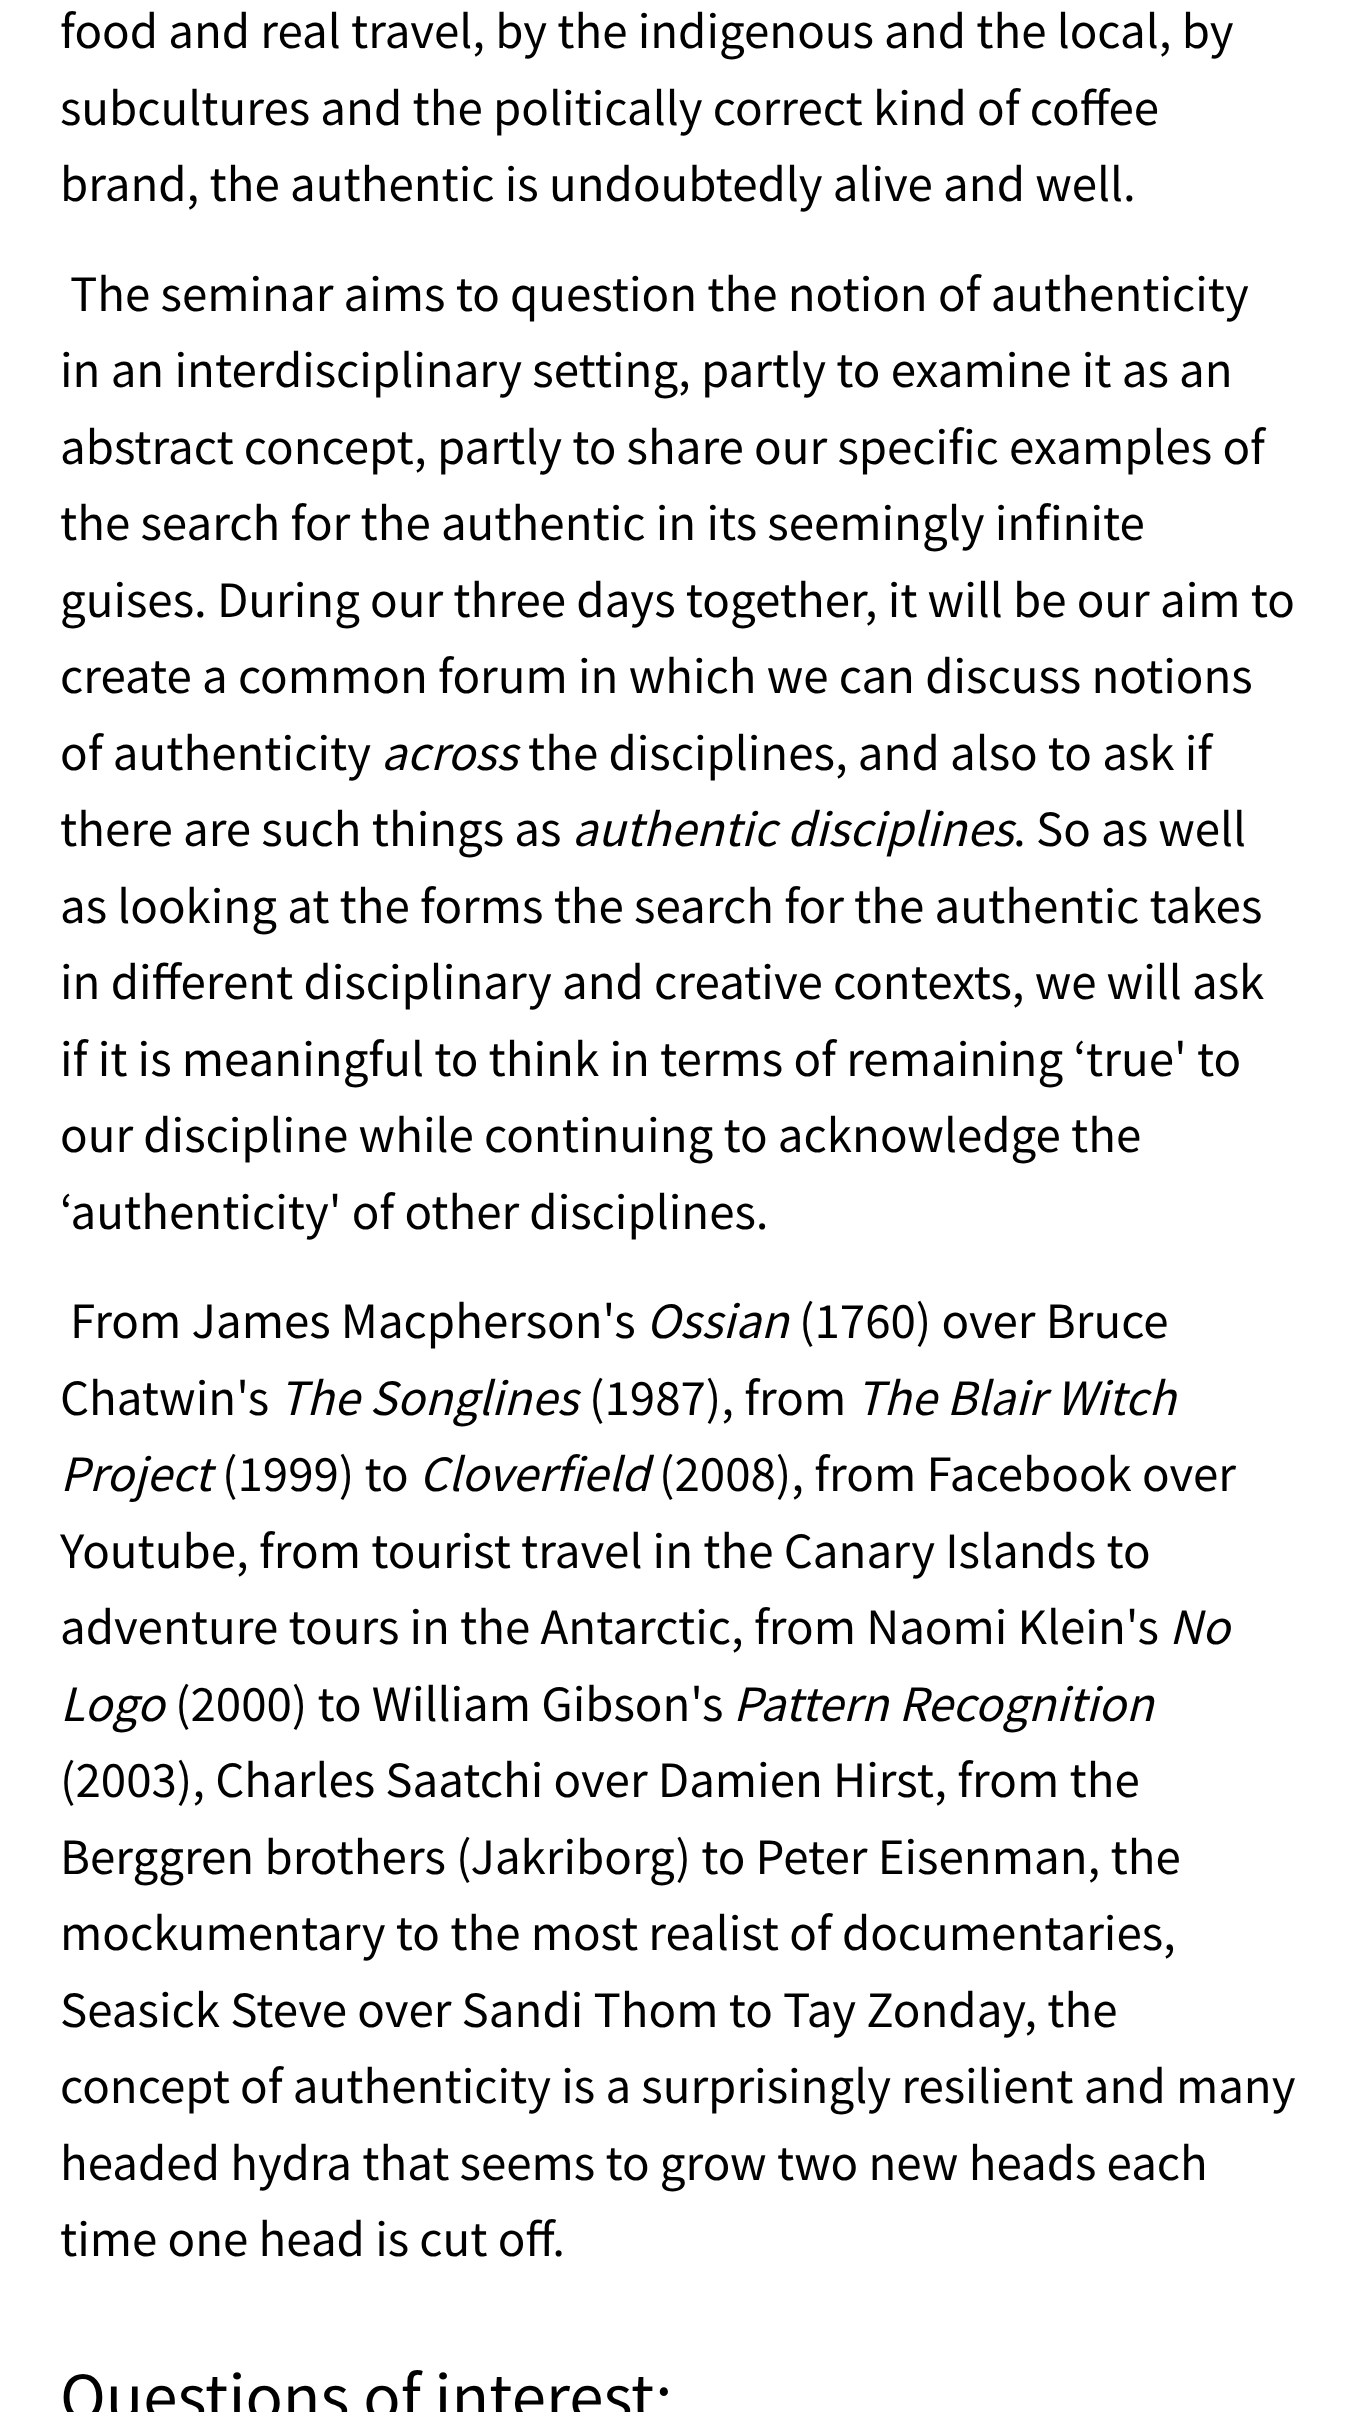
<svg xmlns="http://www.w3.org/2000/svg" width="1355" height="2412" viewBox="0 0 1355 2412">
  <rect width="100%" height="100%" fill="#ffffff"/>
  <text x="60" y="48" font-family="Source Sans Pro" font-size="51" fill="#000000">food and real travel, by the indigenous and the local, by</text>
  <text x="60" y="125" font-family="Source Sans Pro" font-size="51" fill="#000000">subcultures and the politically correct kind of coffee</text>
  <text x="60" y="201" font-family="Source Sans Pro" font-size="51" fill="#000000">brand, the authentic is undoubtedly alive and well.</text>
  <text x="70" y="311" font-family="Source Sans Pro" font-size="51" fill="#000000">The seminar aims to question the notion of authenticity</text>
  <text x="60" y="387" font-family="Source Sans Pro" font-size="51" fill="#000000">in an interdisciplinary setting, partly to examine it as an</text>
  <text x="60" y="464" font-family="Source Sans Pro" font-size="51" fill="#000000">abstract concept, partly to share our specific examples of</text>
  <text x="60" y="540" font-family="Source Sans Pro" font-size="51" fill="#000000">the search for the authentic in its seemingly infinite</text>
  <text x="60" y="617" font-family="Source Sans Pro" font-size="51" fill="#000000">guises. During our three days together, it will be our aim to</text>
  <text x="60" y="693" font-family="Source Sans Pro" font-size="51" fill="#000000">create a common forum in which we can discuss notions</text>
  <text x="60" y="770" font-family="Source Sans Pro" font-size="51" fill="#000000">of authenticity</text>
  <text x="381" y="770" font-family="Source Sans Pro" font-size="51" font-style="italic" fill="#000000">across</text>
  <text x="528" y="770" font-family="Source Sans Pro" font-size="51" fill="#000000">the disciplines, and also to ask if</text>
  <text x="60" y="846" font-family="Source Sans Pro" font-size="51" fill="#000000">there are such things as</text>
  <text x="572" y="846" font-family="Source Sans Pro" font-size="51" font-style="italic" fill="#000000">authentic disciplines</text>
  <text x="1013" y="846" font-family="Source Sans Pro" font-size="51" fill="#000000">. So as well</text>
  <text x="60" y="923" font-family="Source Sans Pro" font-size="51" fill="#000000">as looking at the forms the search for the authentic takes</text>
  <text x="60" y="999" font-family="Source Sans Pro" font-size="51" fill="#000000">in different disciplinary and creative contexts, we will ask</text>
  <text x="60" y="1076" font-family="Source Sans Pro" font-size="51" fill="#000000">if it is meaningful to think in terms of remaining ‘true' to</text>
  <text x="60" y="1152" font-family="Source Sans Pro" font-size="51" fill="#000000">our discipline while continuing to acknowledge the</text>
  <text x="60" y="1229" font-family="Source Sans Pro" font-size="51" fill="#000000">‘authenticity' of other disciplines.</text>
  <text x="70" y="1338" font-family="Source Sans Pro" font-size="51" fill="#000000">From James Macpherson's</text>
  <text x="646" y="1338" font-family="Source Sans Pro" font-size="51" font-style="italic" fill="#000000">Ossian</text>
  <text x="799" y="1338" font-family="Source Sans Pro" font-size="51" fill="#000000">(1760) over Bruce</text>
  <text x="60" y="1415" font-family="Source Sans Pro" font-size="51" fill="#000000">Chatwin's</text>
  <text x="279" y="1415" font-family="Source Sans Pro" font-size="51" font-style="italic" fill="#000000">The Songlines</text>
  <text x="589" y="1415" font-family="Source Sans Pro" font-size="51" fill="#000000">(1987), from</text>
  <text x="856" y="1415" font-family="Source Sans Pro" font-size="51" font-style="italic" fill="#000000">The Blair Witch</text>
  <text x="60" y="1491" font-family="Source Sans Pro" font-size="51" font-style="italic" fill="#000000">Project</text>
  <text x="222" y="1491" font-family="Source Sans Pro" font-size="51" fill="#000000">(1999) to</text>
  <text x="419" y="1491" font-family="Source Sans Pro" font-size="51" font-style="italic" fill="#000000">Cloverfield</text>
  <text x="659" y="1491" font-family="Source Sans Pro" font-size="51" fill="#000000">(2008), from Facebook over</text>
  <text x="60" y="1568" font-family="Source Sans Pro" font-size="51" fill="#000000">Youtube, from tourist travel in the Canary Islands to</text>
  <text x="60" y="1644" font-family="Source Sans Pro" font-size="51" fill="#000000">adventure tours in the Antarctic, from Naomi Klein's</text>
  <text x="1169" y="1644" font-family="Source Sans Pro" font-size="51" font-style="italic" fill="#000000">No</text>
  <text x="60" y="1721" font-family="Source Sans Pro" font-size="51" font-style="italic" fill="#000000">Logo</text>
  <text x="175" y="1721" font-family="Source Sans Pro" font-size="51" fill="#000000">(2000) to William Gibson's</text>
  <text x="733" y="1721" font-family="Source Sans Pro" font-size="51" font-style="italic" fill="#000000">Pattern Recognition</text>
  <text x="60" y="1797" font-family="Source Sans Pro" font-size="51" fill="#000000">(2003), Charles Saatchi over Damien Hirst, from the</text>
  <text x="60" y="1874" font-family="Source Sans Pro" font-size="51" fill="#000000">Berggren brothers (Jakriborg) to Peter Eisenman, the</text>
  <text x="60" y="1950" font-family="Source Sans Pro" font-size="51" fill="#000000">mockumentary to the most realist of documentaries,</text>
  <text x="60" y="2027" font-family="Source Sans Pro" font-size="51" fill="#000000">Seasick Steve over Sandi Thom to Tay Zonday, the</text>
  <text x="60" y="2103" font-family="Source Sans Pro" font-size="51" fill="#000000">concept of authenticity is a surprisingly resilient and many</text>
  <text x="60" y="2180" font-family="Source Sans Pro" font-size="51" fill="#000000">headed hydra that seems to grow two new heads each</text>
  <text x="60" y="2256" font-family="Source Sans Pro" font-size="51" fill="#000000">time one head is cut off.</text>
  <text x="60" y="2420" font-family="Source Sans Pro" font-size="69" fill="#000000">Questions of interest:</text>
</svg>
